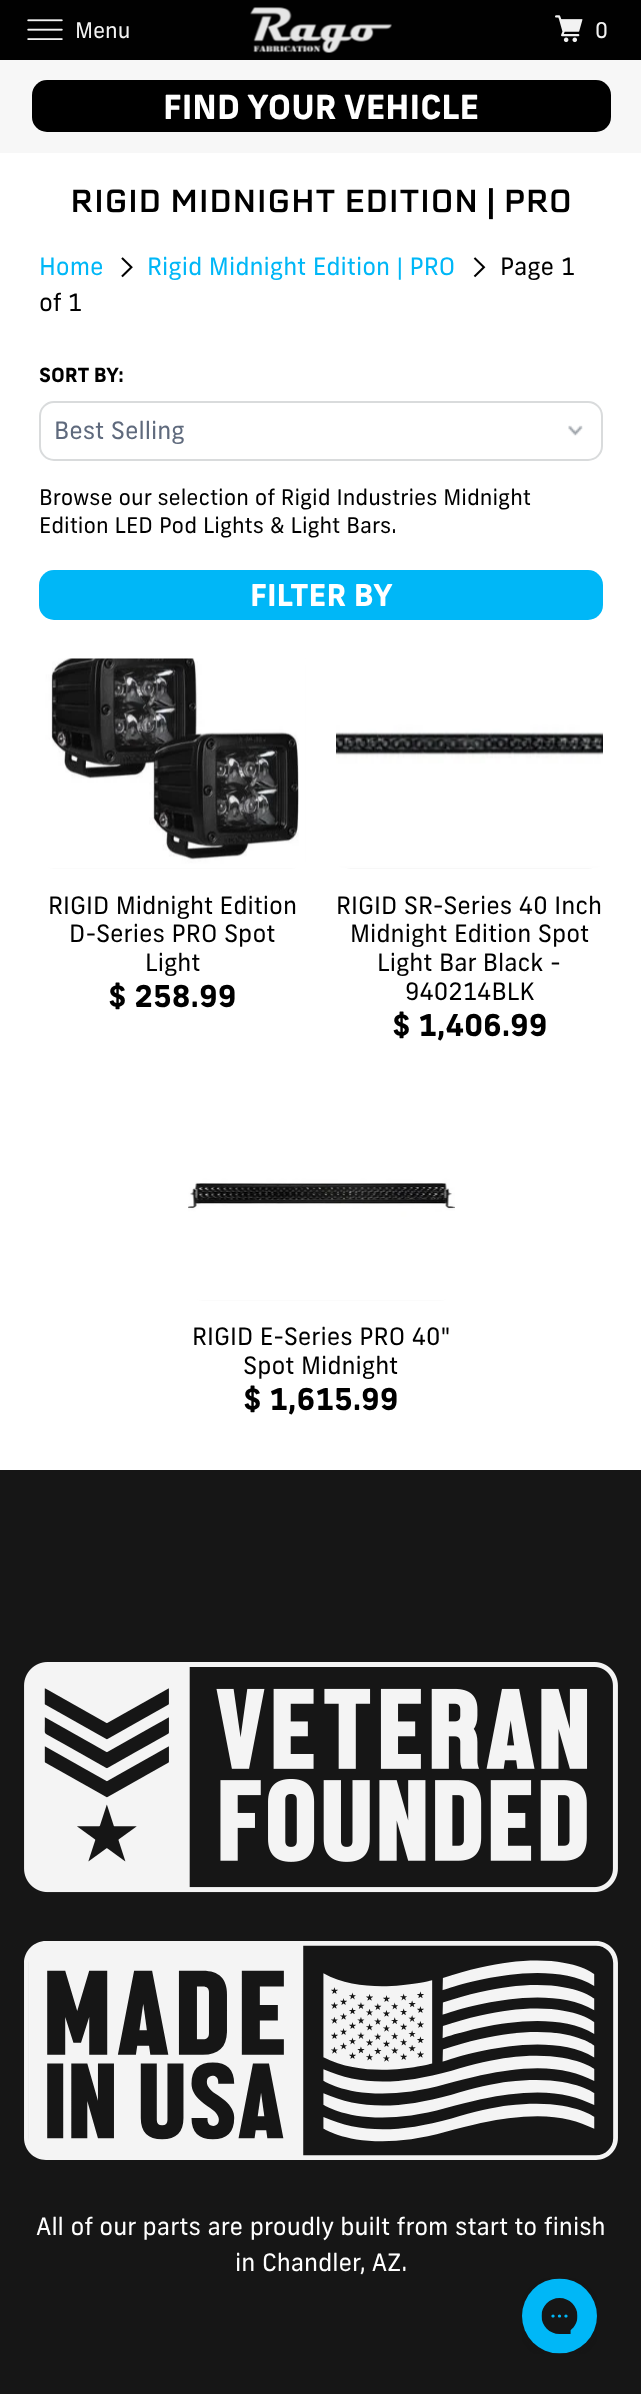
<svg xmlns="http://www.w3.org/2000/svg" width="641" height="2394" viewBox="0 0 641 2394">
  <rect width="100%" height="100%" fill="#ffffff"/>
  <rect x="0" y="0" width="641" height="60" fill="#010101"/>
  <image x="27" y="19" width="36" height="21" href="img1.png"/>
  <text x="75" y="38" font-family="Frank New" font-size="21.6" fill="#f3f3f3">Menu</text>
  <image x="250" y="7" width="142" height="46" href="img2.png"/>
  <image x="555" y="15" width="28" height="28" href="img3.png"/>
  <text x="595" y="38" font-family="Frank New" font-size="21.6" fill="#f3f3f3">0</text>
  <rect x="0" y="60" width="641" height="93" fill="#f7f7f7"/>
  <rect x="32" y="80" width="579" height="52" rx="15" fill="#000000"/>
  <text x="163" y="119" font-family="Frank New" font-size="33.1" font-weight="bold" fill="#ffffff">FIND YOUR VEHICLE</text>
  <text x="70" y="212" font-family="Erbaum" font-size="31.25" fill="#000000">RIGID MIDNIGHT EDITION | PRO</text>
  <text x="39" y="275" font-family="Frank New" font-size="24" fill="#00b7f7">Home</text>
  <image x="121" y="257" width="12" height="21" href="img4.png"/>
  <text x="147" y="275" font-family="Frank New" font-size="24" fill="#00b7f7">Rigid Midnight Edition | PRO</text>
  <image x="473" y="257" width="13" height="21" href="img5.png"/>
  <text x="500" y="275" font-family="Frank New" font-size="24" fill="#000000">Page 1</text>
  <text x="39" y="311" font-family="Frank New" font-size="24" fill="#000000">of 1</text>
  <text x="39" y="382" font-family="Frank New" font-size="19.5" font-weight="bold" fill="#000000">SORT BY:</text>
  <image x="568" y="425" width="15" height="11" href="img6.png"/>
  <rect x="40" y="402" width="562" height="58" rx="14" fill="none" stroke="#d9dbdc" stroke-width="2"/>
  <text x="54" y="439" font-family="Frank New" font-size="24" fill="#5f6a7d">Best Selling</text>
  <text x="39" y="505" font-family="Frank New" font-size="21.6" fill="#000000">Browse our selection of Rigid Industries Midnight</text>
  <text x="39" y="533" font-family="Frank New" font-size="21.6" fill="#000000">Edition LED Pod Lights &amp; Light Bars.</text>
  <rect x="39" y="570" width="564" height="50" rx="15" fill="#00b7f7"/>
  <text x="250" y="606" font-family="Frank New" font-size="30" font-weight="bold" fill="#ffffff">FILTER BY</text>
  <rect x="39" y="659" width="267" height="210" rx="15" fill="#f7f7f7"/>
  <image x="39" y="658" width="267" height="211" href="img7.png"/>
  <text x="48" y="914" font-family="Frank New" font-size="24" fill="#000000">RIGID Midnight Edition</text>
  <text x="69" y="942" font-family="Frank New" font-size="24" fill="#000000">D-Series PRO Spot</text>
  <text x="145" y="971" font-family="Frank New" font-size="24" fill="#000000">Light</text>
  <text x="108" y="1007" font-family="Frank New" font-size="30" font-weight="bold" fill="#000000">$ 258.99</text>
  <rect x="336" y="659" width="267" height="210" rx="15" fill="#f7f7f7"/>
  <image x="336" y="659" width="267" height="209" href="img8.png"/>
  <text x="336" y="914" font-family="Frank New" font-size="24" fill="#000000">RIGID SR-Series 40 Inch</text>
  <text x="350" y="942" font-family="Frank New" font-size="24" fill="#000000">Midnight Edition Spot</text>
  <text x="377" y="971" font-family="Frank New" font-size="24" fill="#000000">Light Bar Black -</text>
  <text x="405" y="1000" font-family="Frank New" font-size="24" fill="#000000">940214BLK</text>
  <text x="392" y="1036" font-family="Frank New" font-size="30" font-weight="bold" fill="#000000">$ 1,406.99</text>
  <rect x="188" y="1091" width="267" height="210" rx="15" fill="#f7f7f7"/>
  <image x="188" y="1091" width="267" height="210" href="img9.png"/>
  <text x="192" y="1345" font-family="Frank New" font-size="24" fill="#000000">RIGID E-Series PRO 40"</text>
  <text x="243" y="1374" font-family="Frank New" font-size="24" fill="#000000">Spot Midnight</text>
  <text x="243" y="1410" font-family="Frank New" font-size="30" font-weight="bold" fill="#000000">$ 1,615.99</text>
  <rect x="0" y="1470" width="641" height="924" fill="#161616"/>
  <image x="24" y="1662" width="594" height="231" href="img10.png"/>
  <image x="24" y="1941" width="594" height="219" href="img11.png"/>
  <text x="36" y="2235" font-family="Frank New" font-size="24" fill="#ffffff">All of our parts are proudly built from start to finish</text>
  <text x="235" y="2271" font-family="Frank New" font-size="24" fill="#ffffff">in Chandler, AZ.</text>
  <image x="522" y="2278" width="75" height="76" href="img12.png"/>
</svg>
